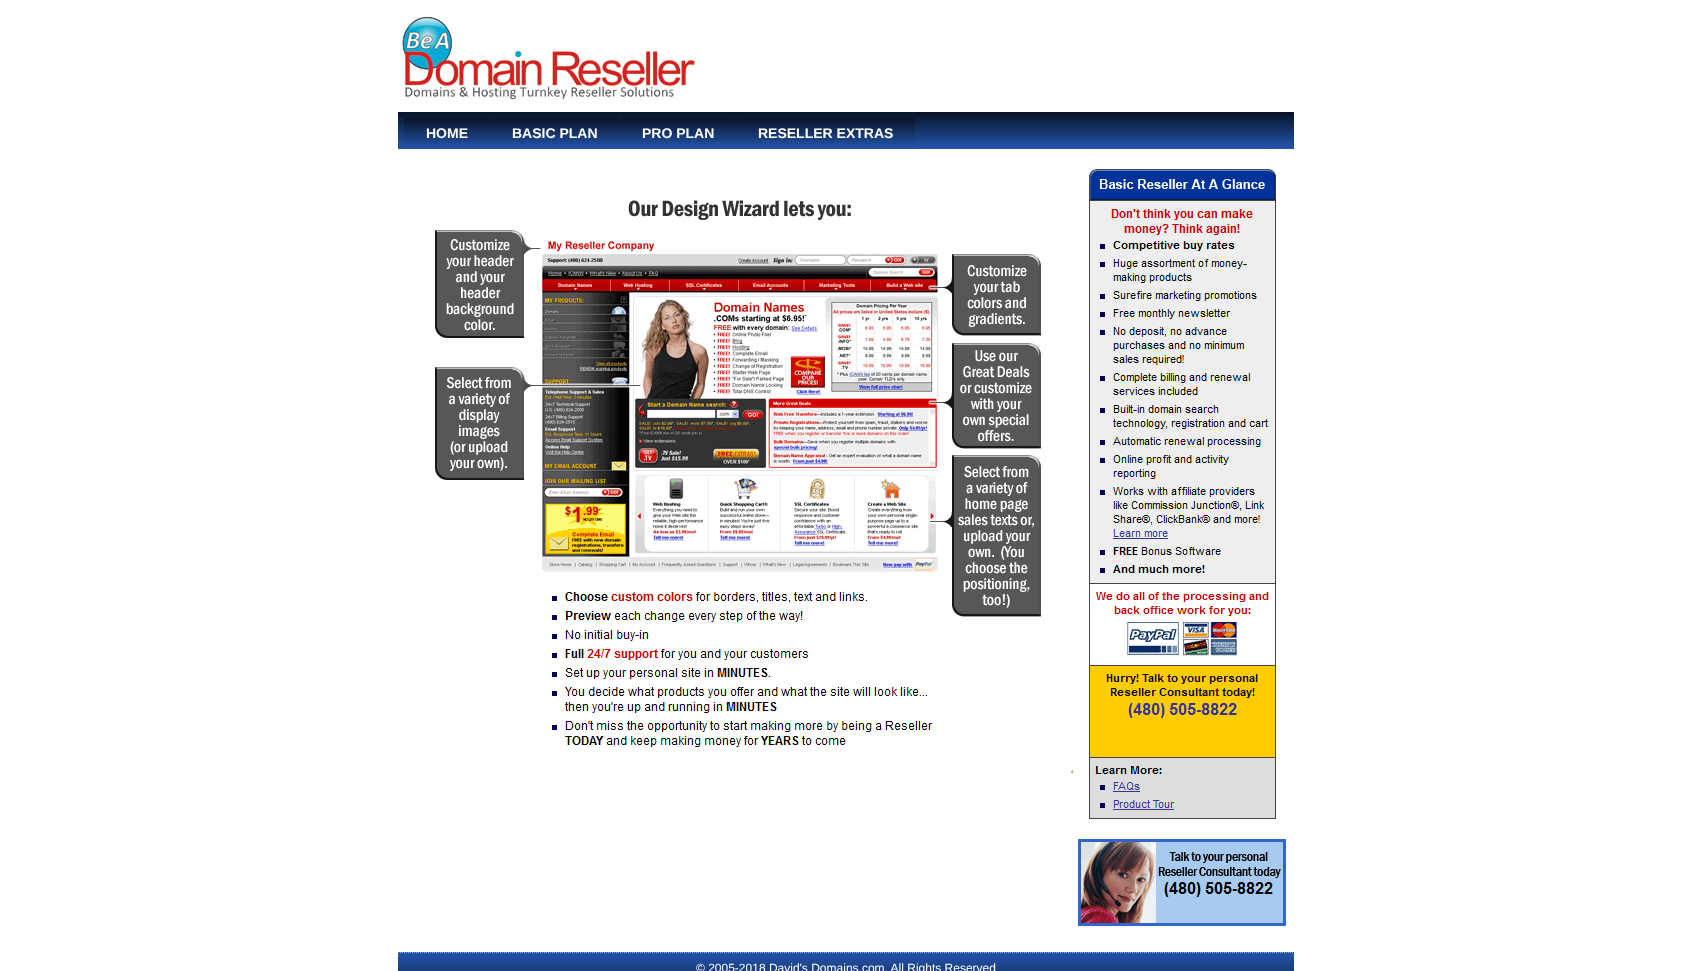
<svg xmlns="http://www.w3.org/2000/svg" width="1692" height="971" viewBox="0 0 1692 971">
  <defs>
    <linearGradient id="g1" gradientUnits="userSpaceOnUse" x1="846" y1="112" x2="846" y2="149"><stop offset="0" stop-color="#081326"/><stop offset="1" stop-color="#2456ae"/></linearGradient>
    <linearGradient id="g2" gradientUnits="userSpaceOnUse" x1="447" y1="118" x2="447" y2="149"><stop offset="0" stop-color="#081326"/><stop offset="1" stop-color="#2456ae"/></linearGradient>
    <linearGradient id="g3" gradientUnits="userSpaceOnUse" x1="555" y1="118" x2="555" y2="149"><stop offset="0" stop-color="#081326"/><stop offset="1" stop-color="#2456ae"/></linearGradient>
    <linearGradient id="g4" gradientUnits="userSpaceOnUse" x1="678" y1="118" x2="678" y2="149"><stop offset="0" stop-color="#081326"/><stop offset="1" stop-color="#2456ae"/></linearGradient>
    <linearGradient id="g5" gradientUnits="userSpaceOnUse" x1="826" y1="118" x2="826" y2="149"><stop offset="0" stop-color="#081326"/><stop offset="1" stop-color="#2456ae"/></linearGradient>
    <linearGradient id="g6" gradientUnits="userSpaceOnUse" x1="846" y1="952" x2="846" y2="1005"><stop offset="0" stop-color="#2456ae"/><stop offset="1" stop-color="#081326"/></linearGradient>
  </defs>
  <rect width="100%" height="100%" fill="#ffffff"/>
  <image x="398" y="14" width="299" height="87" href="img1.png"/>
  <rect x="398" y="112" width="896" height="37" fill="url(#g1)"/>
  <path d="M407 118H487C488.5 118 490 119.5 490 121V149H404V121C404 119.5 405.5 118 407 118Z" fill="url(#g2)"/>
  <text x="426" y="138" font-family="Liberation Sans" font-size="14" font-weight="bold" fill="#ffffff">HOME</text>
  <path d="M493 118H617C618.5 118 620 119.5 620 121V149H490V121C490 119.5 491.5 118 493 118Z" fill="url(#g3)"/>
  <text x="512" y="138" font-family="Liberation Sans" font-size="14" font-weight="bold" fill="#ffffff">BASIC PLAN</text>
  <path d="M623 118H733C734.5 118 736 119.5 736 121V149H620V121C620 119.5 621.5 118 623 118Z" fill="url(#g4)"/>
  <text x="642" y="138" font-family="Liberation Sans" font-size="14" font-weight="bold" fill="#ffffff">PRO PLAN</text>
  <path d="M739 118H912C913.5 118 915 119.5 915 121V149H736V121C736 119.5 737.5 118 739 118Z" fill="url(#g5)"/>
  <text x="758" y="138" font-family="Liberation Sans" font-size="14" font-weight="bold" fill="#ffffff">RESELLER EXTRAS</text>
  <image x="435" y="200" width="638" height="573" href="img2.png"/>
  <image x="1089" y="169" width="187" height="650" href="img3.png"/>
  <image x="1078" y="839" width="208" height="87" href="img4.png"/>
  <rect x="398" y="952" width="896" height="19" fill="url(#g6)"/>
  <path d="M398 952.5H1294" fill="none" stroke="#9cafc4" stroke-dasharray="1 1"/>
  <text x="696" y="972" font-family="Liberation Sans" font-size="12" fill="#ffffff">© 2005-2018 David's Domains.com. All Rights Reserved</text>
</svg>
